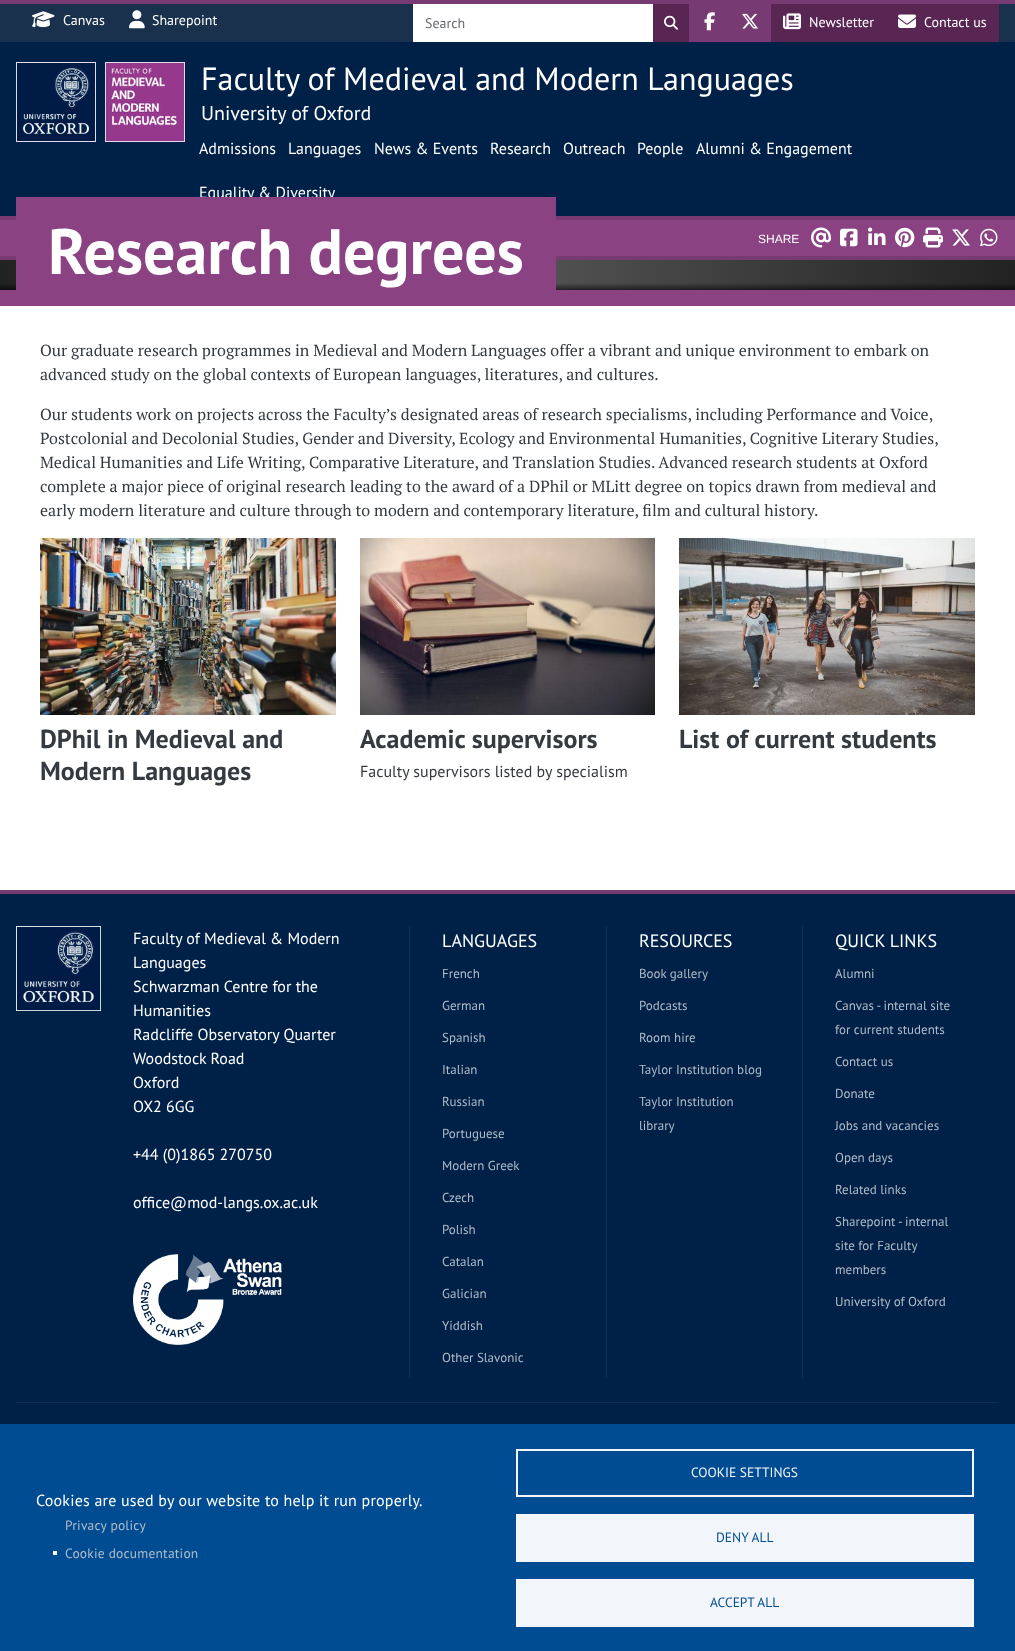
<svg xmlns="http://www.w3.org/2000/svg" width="1015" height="1651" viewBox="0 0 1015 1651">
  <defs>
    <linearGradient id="g1" gradientUnits="userSpaceOnUse" x1="0" y1="275" x2="1015" y2="275"><stop offset="0" stop-color="#222222"/><stop offset="0.5" stop-color="#555555"/><stop offset="1" stop-color="#222222"/></linearGradient>
    <linearGradient id="g2" gradientUnits="userSpaceOnUse" x1="508" y1="283" x2="508" y2="292"><stop offset="0" stop-color="#000000" stop-opacity="0"/><stop offset="1" stop-color="#000000" stop-opacity="0.75"/></linearGradient>
  </defs>
  <rect width="100%" height="100%" fill="#ffffff"/>
  <rect x="0" y="42" width="1015" height="174" fill="#002147"/>
  <rect x="0" y="216" width="1015" height="4" fill="#783a72"/>
  <rect x="0" y="4" width="1015" height="38" fill="#1a314d"/>
  <image x="32" y="11" width="23" height="17" href="img1.png"/>
  <text x="63" y="25" font-family="PT Sans" font-size="14" fill="#ffffff">Canvas</text>
  <image x="129" y="10" width="16" height="19" href="img2.png"/>
  <text x="152" y="25" font-family="PT Sans" font-size="14" fill="#ffffff">Sharepoint</text>
  <text x="199" y="154" font-family="PT Sans" font-size="16" fill="#ffffff">Admissions</text>
  <text x="288" y="154" font-family="PT Sans" font-size="16" fill="#ffffff">Languages</text>
  <text x="374" y="154" font-family="PT Sans" font-size="16" fill="#ffffff">News &amp; Events</text>
  <text x="490" y="154" font-family="PT Sans" font-size="16" fill="#ffffff">Research</text>
  <text x="563" y="154" font-family="PT Sans" font-size="16" fill="#ffffff">Outreach</text>
  <text x="637" y="154" font-family="PT Sans" font-size="16" fill="#ffffff">People</text>
  <text x="696" y="154" font-family="PT Sans" font-size="16" fill="#ffffff">Alumni &amp; Engagement</text>
  <text x="199" y="198" font-family="PT Sans" font-size="16" fill="#ffffff">Equality &amp; Diversity</text>
  <rect x="16.5" y="62.5" width="79" height="79" fill="none" stroke="#ddddee"/>
  <image x="17" y="63" width="78" height="78" href="img3.png"/>
  <rect x="105.5" y="62.5" width="79" height="79" fill="none" stroke="#ddddee"/>
  <image x="106" y="63" width="78" height="78" href="img4.png"/>
  <text x="201" y="90" font-family="PT Sans" font-size="32" fill="#ffffff">Faculty of Medieval and Modern Languages</text>
  <text x="201" y="120" font-family="PT Sans" font-size="20" fill="#ffffff">University of Oxford</text>
  <rect x="0" y="0" width="1015" height="4" fill="#783a72"/>
  <rect x="413" y="4" width="240" height="38" fill="#ffffff"/>
  <text x="425" y="28" font-family="PT Sans" font-size="14" fill="#676b70">Search</text>
  <rect x="653" y="4" width="36" height="38" fill="#592654"/>
  <image x="664" y="15" width="14" height="15" href="img5.png"/>
  <rect x="689" y="4" width="82" height="38" fill="#783a72"/>
  <image x="704" y="12" width="11" height="19" href="img6.png"/>
  <image x="742" y="13" width="16" height="16" href="img7.png"/>
  <rect x="771" y="4" width="228" height="38" fill="#592654"/>
  <image x="783" y="13" width="18" height="17" href="img8.png"/>
  <text x="809" y="27" font-family="PT Sans" font-size="14" fill="#ffffff">Newsletter</text>
  <image x="898" y="14" width="18" height="14" href="img9.png"/>
  <text x="924" y="27" font-family="PT Sans" font-size="14" fill="#ffffff">Contact us</text>
  <rect x="0" y="290" width="1015" height="16" fill="#8a4283"/>
  <rect x="0" y="220" width="1015" height="36" fill="#8a4283"/>
  <rect x="0" y="256" width="1015" height="4" fill="#783a72"/>
  <rect x="0" y="260" width="1015" height="30" fill="url(#g1)"/>
  <rect x="0" y="283" width="1015" height="7" fill="url(#g2)"/>
  <rect x="16" y="197" width="540" height="93" fill="#8a4283"/>
  <text x="48" y="274" font-family="PT Sans" font-size="64" font-weight="bold" fill="#ffffff">Research degrees</text>
  <text x="40" y="356" font-family="PT Serif" font-size="16" fill="#343a40">Our graduate research programmes in Medieval and Modern Languages offer a vibrant and unique environment to embark on</text>
  <text x="40" y="380" font-family="PT Serif" font-size="16" fill="#343a40">advanced study on the global contexts of European languages, literatures, and cultures.</text>
  <text x="40" y="420" font-family="PT Serif" font-size="16" fill="#343a40">Our students work on projects across the Faculty’s designated areas of research specialisms, including Performance and Voice,</text>
  <text x="40" y="444" font-family="PT Serif" font-size="16" fill="#343a40">Postcolonial and Decolonial Studies, Gender and Diversity, Ecology and Environmental Humanities, Cognitive Literary Studies,</text>
  <text x="40" y="468" font-family="PT Serif" font-size="16" fill="#343a40">Medical Humanities and Life Writing, Comparative Literature, and Translation Studies. Advanced research students at Oxford</text>
  <text x="40" y="492" font-family="PT Serif" font-size="16" fill="#343a40">complete a major piece of original research leading to the award of a DPhil or MLitt degree on topics drawn from medieval and</text>
  <text x="40" y="516" font-family="PT Serif" font-size="16" fill="#343a40">early modern literature and culture through to modern and contemporary literature, film and cultural history.</text>
  <image x="40" y="538" width="296" height="177" href="img10.png"/>
  <text x="40" y="748" font-family="PT Sans" font-size="26" font-weight="bold" fill="#343a40">DPhil in Medieval and</text>
  <text x="40" y="780" font-family="PT Sans" font-size="26" font-weight="bold" fill="#343a40">Modern Languages</text>
  <image x="360" y="538" width="295" height="177" href="img11.png"/>
  <text x="360" y="748" font-family="PT Sans" font-size="26" font-weight="bold" fill="#343a40">Academic supervisors</text>
  <text x="360" y="777" font-family="PT Sans" font-size="16" fill="#343a40">Faculty supervisors listed by specialism</text>
  <image x="679" y="538" width="296" height="177" href="img12.png"/>
  <text x="679" y="748" font-family="PT Sans" font-size="26" font-weight="bold" fill="#343a40">List of current students</text>
  <text x="758" y="243" font-family="Liberation Sans" font-size="12" fill="#ffffff">SHARE</text>
  <image x="811" y="227" width="20" height="21" href="img13.png"/>
  <image x="840" y="228" width="18" height="19" href="img14.png"/>
  <image x="868" y="227" width="18" height="18" href="img15.png"/>
  <image x="895" y="227" width="20" height="21" href="img16.png"/>
  <image x="923" y="227" width="20" height="21" href="img17.png"/>
  <image x="952" y="229" width="18" height="17" href="img18.png"/>
  <image x="980" y="228" width="18" height="19" href="img19.png"/>
  <rect x="0" y="894" width="1015" height="530" fill="#002147"/>
  <rect x="0" y="890" width="1015" height="4" fill="#783a72"/>
  <image x="16" y="926" width="85" height="85" href="img20.png"/>
  <text x="133" y="944" font-family="PT Sans" font-size="16" fill="#ffffff">Faculty of Medieval &amp; Modern</text>
  <text x="133" y="968" font-family="PT Sans" font-size="16" fill="#ffffff">Languages</text>
  <text x="133" y="992" font-family="PT Sans" font-size="16" fill="#ffffff">Schwarzman Centre for the</text>
  <text x="133" y="1016" font-family="PT Sans" font-size="16" fill="#ffffff">Humanities</text>
  <text x="133" y="1040" font-family="PT Sans" font-size="16" fill="#ffffff">Radcliffe Observatory Quarter</text>
  <text x="133" y="1064" font-family="PT Sans" font-size="16" fill="#ffffff">Woodstock Road</text>
  <text x="133" y="1088" font-family="PT Sans" font-size="16" fill="#ffffff">Oxford</text>
  <text x="133" y="1112" font-family="PT Sans" font-size="16" fill="#ffffff">OX2 6GG</text>
  <text x="133" y="1160" font-family="PT Sans" font-size="16" fill="#ffffff">+44 (0)1865 270750</text>
  <text x="133" y="1208" font-family="PT Sans" font-size="16" fill="#ffffff">office@mod-langs.ox.ac.uk</text>
  <image x="133" y="1254" width="149" height="91" href="img21.png"/>
  <rect x="409" y="926" width="1" height="452" fill="#122f53"/>
  <text x="442" y="947" font-family="PT Sans" font-size="18" fill="#ffffff">LANGUAGES</text>
  <text x="442" y="978" font-family="PT Sans" font-size="13" fill="#b2bbc7">French</text>
  <text x="442" y="1010" font-family="PT Sans" font-size="13" fill="#b2bbc7">German</text>
  <text x="442" y="1042" font-family="PT Sans" font-size="13" fill="#b2bbc7">Spanish</text>
  <text x="442" y="1074" font-family="PT Sans" font-size="13" fill="#b2bbc7">Italian</text>
  <text x="442" y="1106" font-family="PT Sans" font-size="13" fill="#b2bbc7">Russian</text>
  <text x="442" y="1138" font-family="PT Sans" font-size="13" fill="#b2bbc7">Portuguese</text>
  <text x="442" y="1170" font-family="PT Sans" font-size="13" fill="#b2bbc7">Modern Greek</text>
  <text x="442" y="1202" font-family="PT Sans" font-size="13" fill="#b2bbc7">Czech</text>
  <text x="442" y="1234" font-family="PT Sans" font-size="13" fill="#b2bbc7">Polish</text>
  <text x="442" y="1266" font-family="PT Sans" font-size="13" fill="#b2bbc7">Catalan</text>
  <text x="442" y="1298" font-family="PT Sans" font-size="13" fill="#b2bbc7">Galician</text>
  <text x="442" y="1330" font-family="PT Sans" font-size="13" fill="#b2bbc7">Yiddish</text>
  <text x="442" y="1362" font-family="PT Sans" font-size="13" fill="#b2bbc7">Other Slavonic</text>
  <rect x="606" y="926" width="1" height="452" fill="#122f53"/>
  <text x="639" y="947" font-family="PT Sans" font-size="18" fill="#ffffff">RESOURCES</text>
  <text x="639" y="978" font-family="PT Sans" font-size="13" fill="#b2bbc7">Book gallery</text>
  <text x="639" y="1010" font-family="PT Sans" font-size="13" fill="#b2bbc7">Podcasts</text>
  <text x="639" y="1042" font-family="PT Sans" font-size="13" fill="#b2bbc7">Room hire</text>
  <text x="639" y="1074" font-family="PT Sans" font-size="13" fill="#b2bbc7">Taylor Institution blog</text>
  <text x="639" y="1106" font-family="PT Sans" font-size="13" fill="#b2bbc7">Taylor Institution</text>
  <text x="639" y="1130" font-family="PT Sans" font-size="13" fill="#b2bbc7">library</text>
  <rect x="802" y="926" width="1" height="452" fill="#122f53"/>
  <text x="835" y="947" font-family="PT Sans" font-size="18" fill="#ffffff">QUICK LINKS</text>
  <text x="835" y="978" font-family="PT Sans" font-size="13" fill="#b2bbc7">Alumni</text>
  <text x="835" y="1010" font-family="PT Sans" font-size="13" fill="#b2bbc7">Canvas - internal site</text>
  <text x="835" y="1034" font-family="PT Sans" font-size="13" fill="#b2bbc7">for current students</text>
  <text x="835" y="1066" font-family="PT Sans" font-size="13" fill="#b2bbc7">Contact us</text>
  <text x="835" y="1098" font-family="PT Sans" font-size="13" fill="#b2bbc7">Donate</text>
  <text x="835" y="1130" font-family="PT Sans" font-size="13" fill="#b2bbc7">Jobs and vacancies</text>
  <text x="835" y="1162" font-family="PT Sans" font-size="13" fill="#b2bbc7">Open days</text>
  <text x="835" y="1194" font-family="PT Sans" font-size="13" fill="#b2bbc7">Related links</text>
  <text x="835" y="1226" font-family="PT Sans" font-size="13" fill="#b2bbc7">Sharepoint - internal</text>
  <text x="835" y="1250" font-family="PT Sans" font-size="13" fill="#b2bbc7">site for Faculty</text>
  <text x="835" y="1274" font-family="PT Sans" font-size="13" fill="#b2bbc7">members</text>
  <text x="835" y="1306" font-family="PT Sans" font-size="13" fill="#b2bbc7">University of Oxford</text>
  <rect x="16" y="1402" width="983" height="1" fill="#122f53"/>
  <rect x="0" y="1424" width="1015" height="227" fill="#004c93"/>
  <text x="36" y="1506" font-family="PT Sans" font-size="16" letter-spacing="0.2" fill="#ffffff">Cookies are used by our website to help it run properly.</text>
  <text x="65" y="1530" font-family="PT Sans" font-size="13.5" letter-spacing="0.2" fill="#b2bbc7">Privacy policy</text>
  <rect x="53" y="1551" width="4" height="4" fill="#ffffff"/>
  <text x="65" y="1558" font-family="PT Sans" font-size="13.5" letter-spacing="0.2" fill="#b2bbc7">Cookie documentation</text>
  <rect x="517" y="1450" width="456" height="46" fill="none" stroke="#f2f6fa" stroke-width="2"/>
  <text x="691" y="1477" font-family="PT Sans" font-size="13.5" fill="#f2f6fa">COOKIE SETTINGS</text>
  <rect x="516" y="1514" width="458" height="48" fill="#f2f6fa"/>
  <text x="716" y="1542" font-family="PT Sans" font-size="13.5" fill="#004c93">DENY ALL</text>
  <rect x="516" y="1579" width="458" height="48" fill="#f2f6fa"/>
  <text x="710" y="1607" font-family="PT Sans" font-size="13.5" fill="#004c93">ACCEPT ALL</text>
</svg>
